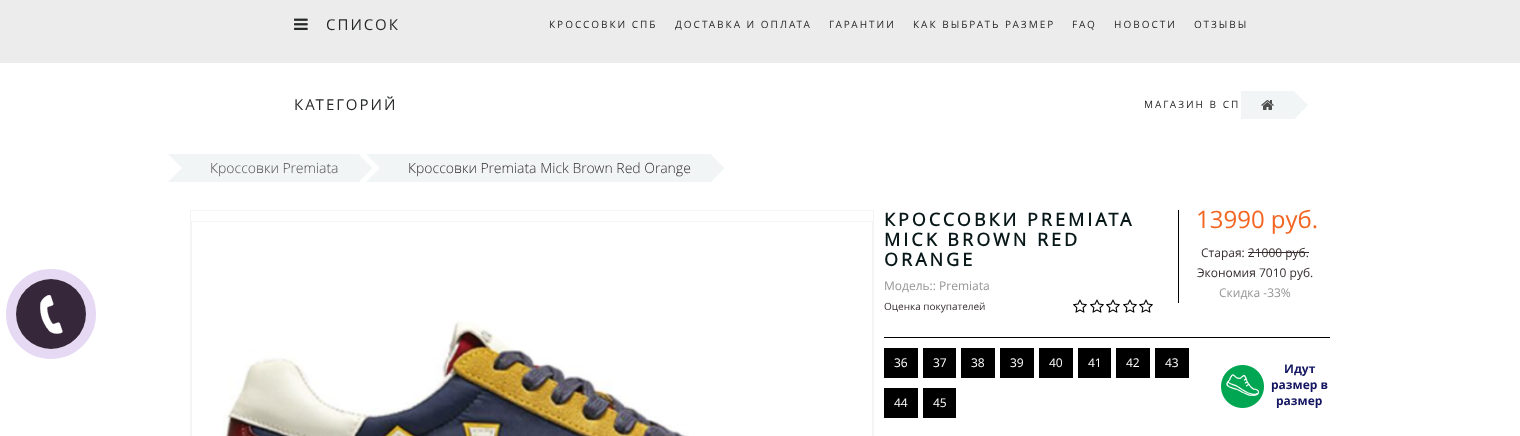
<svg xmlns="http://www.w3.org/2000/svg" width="1520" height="436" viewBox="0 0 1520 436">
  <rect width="100%" height="100%" fill="#ffffff"/>
  <rect x="0" y="0" width="1520" height="63" fill="#ececec"/>
  <image x="294" y="18" width="14" height="12" href="img1.png"/>
  <text x="326" y="30" font-family="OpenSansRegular" font-size="15" letter-spacing="2" fill="#272929">СПИСОК</text>
  <text x="294" y="110" font-family="OpenSansRegular" font-size="15" letter-spacing="2" fill="#272929">КАТЕГОРИЙ</text>
  <text x="549" y="28" font-family="OpenSansRegular" font-size="10" letter-spacing="2" fill="#272929">КРОССОВКИ СПБ</text>
  <text x="675" y="28" font-family="OpenSansRegular" font-size="10" letter-spacing="2" fill="#272929">ДОСТАВКА И ОПЛАТА</text>
  <text x="829" y="28" font-family="OpenSansRegular" font-size="10" letter-spacing="2" fill="#272929">ГАРАНТИИ</text>
  <text x="913" y="28" font-family="OpenSansRegular" font-size="10" letter-spacing="2" fill="#272929">КАК ВЫБРАТЬ РАЗМЕР</text>
  <text x="1072" y="28" font-family="OpenSansRegular" font-size="10" letter-spacing="2" fill="#272929">FAQ</text>
  <text x="1114" y="28" font-family="OpenSansRegular" font-size="10" letter-spacing="2" fill="#272929">НОВОСТИ</text>
  <text x="1194" y="28" font-family="OpenSansRegular" font-size="10" letter-spacing="2" fill="#272929">ОТЗЫВЫ</text>
  <text x="1144" y="108" font-family="OpenSansRegular" font-size="10" letter-spacing="2" fill="#272929">МАГАЗИН В СП</text>
  <rect x="1241" y="91" width="53" height="28" fill="#f1f5f5"/>
  <image x="1261" y="100" width="13" height="10" href="img2.png"/>
  <path d="M1280 105L1294 91L1308 105L1294 119.5Z" fill="#f1f5f5"/>
  <rect x="196" y="154" width="163" height="28" fill="#f1f5f5"/>
  <path d="M168 154H196L182 168Z" fill="#f1f5f5"/>
  <rect x="182" y="154" width="14" height="28" fill="#f1f5f5"/>
  <path d="M196 182H168L182 168Z" fill="#f1f5f5"/>
  <text x="210" y="173" font-family="Open Sans" font-size="14" font-weight="300" fill="#4e4e4e">Кроссовки Premiata</text>
  <path d="M344.5 168L358.5 154L372.5 168L358.5 182.5Z" fill="#f1f5f5"/>
  <rect x="394" y="154" width="317" height="28" fill="#f1f5f5"/>
  <path d="M366 154H394L380 168Z" fill="#f1f5f5"/>
  <rect x="380" y="154" width="14" height="28" fill="#f1f5f5"/>
  <path d="M394 182H366L380 168Z" fill="#f1f5f5"/>
  <text x="408" y="173" font-family="Open Sans" font-size="14" font-weight="300" fill="#302a2f">Кроссовки Premiata Mick Brown Red Orange</text>
  <path d="M696.5 168L710.5 154L724.5 168L710.5 182.5Z" fill="#f1f5f5"/>
  <circle cx="51" cy="314" r="40" fill="none" stroke="#e6d9f3" stroke-width="10"/>
  <circle cx="51" cy="314" r="35" fill="#36283a"/>
  <image x="40" y="295" width="23" height="39" href="img3.png"/>
  <rect x="190.5" y="210.5" width="683" height="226" fill="none" stroke="#f5f4f2"/>
  <rect x="191.5" y="221.5" width="681" height="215" fill="none" stroke="#f5f4f2"/>
  <image x="222" y="321" width="467" height="115" href="img4.png"/>
  <rect x="884" y="337" width="446" height="1" fill="#000000"/>
  <text x="884" y="226" font-family="OpenSansRegular" font-size="18" font-weight="bold" letter-spacing="3" fill="#081718">КРОССОВКИ PREMIATA</text>
  <text x="884" y="246" font-family="OpenSansRegular" font-size="18" font-weight="bold" letter-spacing="3" fill="#081718">MICK BROWN RED</text>
  <text x="884" y="266" font-family="OpenSansRegular" font-size="18" font-weight="bold" letter-spacing="3" fill="#081718">ORANGE</text>
  <text x="884" y="290" font-family="Open Sans" font-size="12" fill="#979696">Модель:: Premiata</text>
  <text x="884" y="310" font-family="Open Sans" font-size="10" fill="#362d2e">Оценка покупателей</text>
  <image x="1073" y="299" width="14" height="14" href="img5.png"/>
  <image x="1090" y="299" width="14" height="14" href="img5.png"/>
  <image x="1106" y="299" width="14" height="14" href="img5.png"/>
  <image x="1123" y="299" width="14" height="14" href="img5.png"/>
  <image x="1139" y="299" width="14" height="14" href="img5.png"/>
  <rect x="1178" y="210" width="1" height="93" fill="#000000"/>
  <text x="1196" y="228" font-family="Open Sans" font-size="24" fill="#f26522">13990 руб.</text>
  <text x="1201" y="257" font-family="Open Sans" font-size="12" fill="#362d2e">Старая: 21000 руб.</text>
  <rect x="1248" y="252" width="61" height="1" fill="#362d2e"/>
  <text x="1197" y="277" font-family="Open Sans" font-size="12" fill="#362d2e">Экономия 7010 руб.</text>
  <text x="1219" y="297" font-family="Open Sans" font-size="12" fill="#979696">Скидка -33%</text>
  <rect x="884" y="348" width="34" height="30" fill="#000000"/>
  <text x="894" y="367" font-family="Open Sans" font-size="12" fill="#ffffff">36</text>
  <rect x="923" y="348" width="33" height="30" fill="#000000"/>
  <text x="933" y="367" font-family="Open Sans" font-size="12" fill="#ffffff">37</text>
  <rect x="961" y="348" width="34" height="30" fill="#000000"/>
  <text x="971" y="367" font-family="Open Sans" font-size="12" fill="#ffffff">38</text>
  <rect x="1000" y="348" width="34" height="30" fill="#000000"/>
  <text x="1010" y="367" font-family="Open Sans" font-size="12" fill="#ffffff">39</text>
  <rect x="1039" y="348" width="34" height="30" fill="#000000"/>
  <text x="1049" y="367" font-family="Open Sans" font-size="12" fill="#ffffff">40</text>
  <rect x="1078" y="348" width="33" height="30" fill="#000000"/>
  <text x="1088" y="367" font-family="Open Sans" font-size="12" fill="#ffffff">41</text>
  <rect x="1116" y="348" width="34" height="30" fill="#000000"/>
  <text x="1126" y="367" font-family="Open Sans" font-size="12" fill="#ffffff">42</text>
  <rect x="1155" y="348" width="34" height="30" fill="#000000"/>
  <text x="1165" y="367" font-family="Open Sans" font-size="12" fill="#ffffff">43</text>
  <rect x="884" y="388" width="34" height="30" fill="#000000"/>
  <text x="894" y="407" font-family="Open Sans" font-size="12" fill="#ffffff">44</text>
  <rect x="923" y="388" width="33" height="30" fill="#000000"/>
  <text x="933" y="407" font-family="Open Sans" font-size="12" fill="#ffffff">45</text>
  <image x="1221" y="365" width="43" height="43" href="img6.png"/>
  <text x="1284" y="373" font-family="Open Sans" font-size="12" font-weight="bold" fill="#131561">Идут</text>
  <text x="1271" y="389" font-family="Open Sans" font-size="12" font-weight="bold" fill="#131561">размер в</text>
  <text x="1276" y="405" font-family="Open Sans" font-size="12" font-weight="bold" fill="#131561">размер</text>
</svg>
